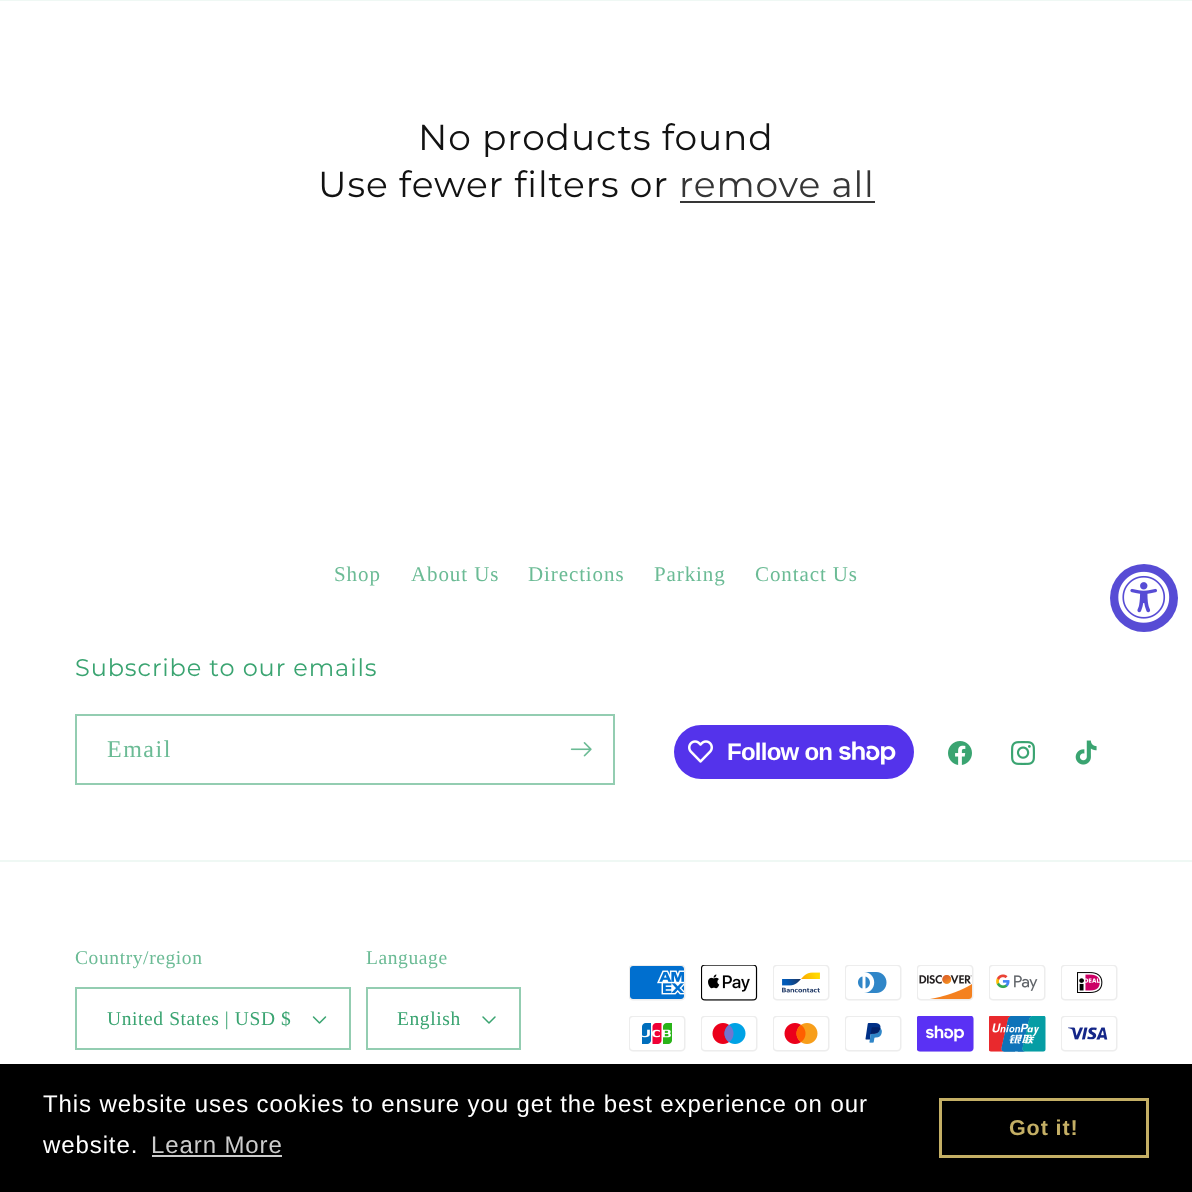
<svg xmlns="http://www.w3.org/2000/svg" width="1192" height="1192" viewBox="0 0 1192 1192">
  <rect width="100%" height="100%" fill="#ffffff"/>
  <rect x="0" y="0" width="1192" height="1" fill="#eff8f4"/>
  <text x="418" y="150" font-family="Montserrat" font-size="36" letter-spacing="0.9" fill="#121212">No products found</text>
  <text x="318" y="197" font-family="Montserrat" font-size="36" letter-spacing="0.9" fill="#121212">Use fewer filters or</text>
  <text x="679" y="197" font-family="Montserrat" font-size="36" letter-spacing="0.9" fill="#363636">remove all</text>
  <rect x="680" y="201" width="195" height="2" fill="#363636"/>
  <text x="334" y="581" font-family="Liberation Serif" font-size="21" letter-spacing="0.9" fill="#6bbb95">Shop</text>
  <text x="411" y="581" font-family="Liberation Serif" font-size="21" letter-spacing="0.9" fill="#6bbb95">About Us</text>
  <text x="528" y="581" font-family="Liberation Serif" font-size="21" letter-spacing="0.9" fill="#6bbb95">Directions</text>
  <text x="654" y="581" font-family="Liberation Serif" font-size="21" letter-spacing="0.9" fill="#6bbb95">Parking</text>
  <text x="755" y="581" font-family="Liberation Serif" font-size="21" letter-spacing="0.9" fill="#6bbb95">Contact Us</text>
  <text x="75" y="676" font-family="Montserrat" font-size="24" letter-spacing="0.9" fill="#3aa471">Subscribe to our emails</text>
  <rect x="76" y="715" width="538" height="69" fill="none" stroke="#93cdb1" stroke-width="2"/>
  <text x="107" y="757" font-family="Liberation Serif" font-size="24" letter-spacing="1.5" fill="#6bbb95">Email</text>
  <image x="570" y="742" width="22" height="15" href="img1.png"/>
  <rect x="674" y="725" width="240" height="54" rx="27" fill="#5433eb"/>
  <image x="688" y="740" width="25" height="23" href="img2.png"/>
  <text x="727" y="760" font-family="Liberation Sans" font-size="24" font-weight="bold" letter-spacing="-0.75" fill="#ffffff">Follow on</text>
  <image x="839" y="741" width="57" height="24" href="img3.png"/>
  <image x="948" y="741" width="24" height="24" href="img4.png"/>
  <image x="1011" y="741" width="24" height="24" href="img5.png"/>
  <image x="1075" y="740" width="22" height="25" href="img6.png"/>
  <rect x="0" y="860" width="1192" height="2" fill="#eff8f4"/>
  <text x="75" y="964" font-family="Liberation Serif" font-size="19.5" letter-spacing="0.6" fill="#6bbb95">Country/region</text>
  <image x="312" y="1016" width="15" height="8" href="img7.png"/>
  <rect x="76" y="988" width="274" height="61" fill="none" stroke="#93cdb1" stroke-width="2"/>
  <text x="107" y="1025" font-family="Liberation Serif" font-size="19.5" letter-spacing="0.6" fill="#3aa471">United States | USD $</text>
  <text x="366" y="964" font-family="Liberation Serif" font-size="19.5" letter-spacing="0.6" fill="#6bbb95">Language</text>
  <image x="482" y="1016" width="14" height="8" href="img8.png"/>
  <rect x="367" y="988" width="153" height="61" fill="none" stroke="#93cdb1" stroke-width="2"/>
  <text x="397" y="1025" font-family="Liberation Serif" font-size="19.5" letter-spacing="0.6" fill="#3aa471">English</text>
  <image x="629" y="965" width="57" height="36" href="img9.png"/>
  <image x="701" y="965" width="57" height="36" href="img10.png"/>
  <image x="773" y="965" width="57" height="36" href="img11.png"/>
  <image x="845" y="965" width="57" height="36" href="img12.png"/>
  <image x="917" y="965" width="57" height="36" href="img13.png"/>
  <image x="989" y="965" width="57" height="36" href="img14.png"/>
  <image x="1061" y="965" width="57" height="36" href="img15.png"/>
  <image x="629" y="1016" width="57" height="36" href="img16.png"/>
  <image x="701" y="1016" width="57" height="36" href="img17.png"/>
  <image x="773" y="1016" width="57" height="36" href="img18.png"/>
  <image x="845" y="1016" width="57" height="36" href="img19.png"/>
  <image x="917" y="1016" width="57" height="36" href="img20.png"/>
  <image x="989" y="1016" width="57" height="36" href="img21.png"/>
  <image x="1061" y="1016" width="57" height="36" href="img22.png"/>
  <circle cx="1144" cy="598" r="34" fill="#574cd5"/>
  <image x="1118" y="571" width="52" height="52" href="img23.png"/>
  <rect x="0" y="1064" width="1192" height="128" fill="#000000"/>
  <text x="43" y="1112" font-family="Liberation Sans" font-size="24" letter-spacing="0.9" fill="#ffffff">This website uses cookies to ensure you get the best experience on our</text>
  <text x="43" y="1153" font-family="Liberation Sans" font-size="24" letter-spacing="0.9" fill="#ffffff">website.</text>
  <text x="151" y="1153" font-family="Liberation Sans" font-size="24" letter-spacing="0.9" fill="#cccccc">Learn More</text>
  <rect x="152" y="1155" width="130" height="2" fill="#cccccc"/>
  <rect x="940.5" y="1099.5" width="207" height="57" fill="none" stroke="#c4af65" stroke-width="3"/>
  <text x="1009" y="1135" font-family="Liberation Sans" font-size="21.5" font-weight="bold" letter-spacing="0.9" fill="#c4af65">Got it!</text>
</svg>
